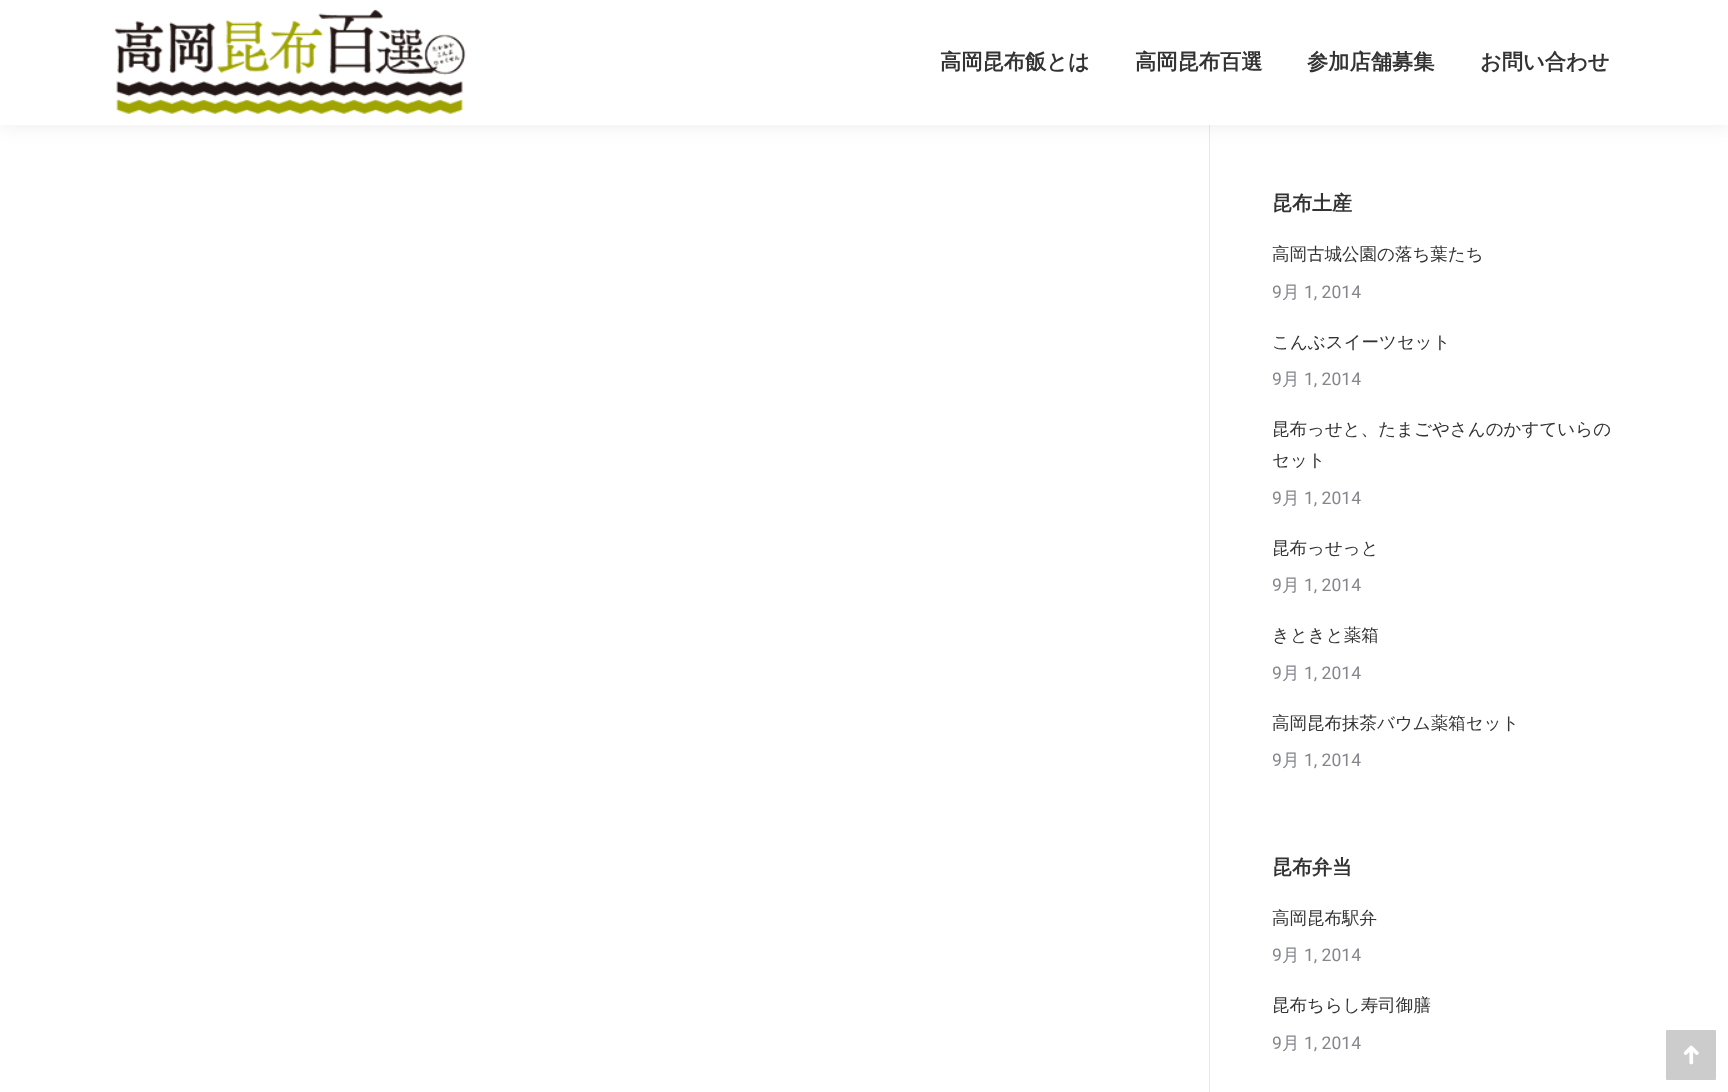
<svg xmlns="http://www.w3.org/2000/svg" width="1728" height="1092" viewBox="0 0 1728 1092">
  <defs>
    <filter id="blur1" x="-50%" y="-200%" width="200%" height="500%"><feGaussianBlur stdDeviation="9.5"/></filter>
    <clipPath id="clip1"><rect x="1273" y="239" width="342" height="87"/></clipPath>
    <clipPath id="clip2"><rect x="1273" y="326" width="342" height="88"/></clipPath>
    <clipPath id="clip3"><rect x="1273" y="414" width="342" height="119"/></clipPath>
    <clipPath id="clip4"><rect x="1273" y="533" width="342" height="87"/></clipPath>
    <clipPath id="clip5"><rect x="1273" y="620" width="342" height="88"/></clipPath>
    <clipPath id="clip6"><rect x="1273" y="708" width="342" height="68"/></clipPath>
    <clipPath id="clip7"><rect x="1273" y="903" width="342" height="87"/></clipPath>
    <clipPath id="clip8"><rect x="1273" y="990" width="342" height="88"/></clipPath>
  </defs>
  <rect width="100%" height="100%" fill="#ffffff"/>
  <rect x="1209" y="125" width="1" height="967" fill="#e7e7e7"/>
  <rect x="-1" y="-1" width="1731" height="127" fill="#000000" fill-opacity="0.07" filter="url(#blur1)"/>
  <rect x="0" y="0" width="1728" height="125" fill="#ffffff"/>
  <image x="114" y="9" width="352" height="105" href="img1.png"/>
  <text x="940" y="69" font-family="WenQuanYi Zen Hei" font-size="21.25" font-weight="bold" fill="#333333">高岡昆布飯とは</text>
  <text x="1135" y="69" font-family="WenQuanYi Zen Hei" font-size="21.25" font-weight="bold" fill="#333333">高岡昆布百選</text>
  <text x="1307" y="69" font-family="WenQuanYi Zen Hei" font-size="21.25" font-weight="bold" fill="#333333">参加店舗募集</text>
  <text x="1480" y="69" font-family="WenQuanYi Zen Hei" font-size="21.25" font-weight="bold" fill="#333333">お問い合わせ</text>
  <text x="1272" y="210" font-family="WenQuanYi Zen Hei" font-size="20" font-weight="bold" fill="#333333">昆布土産</text>
  <text x="1272" y="260" font-family="WenQuanYi Zen Hei" font-size="17.5" font-weight="500" fill="#333333">高岡古城公園の落ち葉たち</text>
  <g clip-path="url(#clip1)">
    <text x="1272" y="298" font-family="Roboto" font-size="17.5" fill="#85868c">9</text>
  </g>
  <text x="1282" y="298" font-family="WenQuanYi Zen Hei" font-size="17.5" font-weight="500" fill="#85868c">月</text>
  <text x="1304" y="298" font-family="Roboto" font-size="17.5" fill="#85868c">1, 2014</text>
  <text x="1272" y="348" font-family="WenQuanYi Zen Hei" font-size="17.5" font-weight="500" fill="#333333">こんぶスイーツセット</text>
  <g clip-path="url(#clip2)">
    <text x="1272" y="385" font-family="Roboto" font-size="17.5" fill="#85868c">9</text>
  </g>
  <text x="1282" y="385" font-family="WenQuanYi Zen Hei" font-size="17.5" font-weight="500" fill="#85868c">月</text>
  <text x="1304" y="385" font-family="Roboto" font-size="17.5" fill="#85868c">1, 2014</text>
  <text x="1272" y="435" font-family="WenQuanYi Zen Hei" font-size="17.5" font-weight="500" fill="#333333">昆布っせと、たまごやさんのかすていらの</text>
  <text x="1272" y="466" font-family="WenQuanYi Zen Hei" font-size="17.5" font-weight="500" fill="#333333">セット</text>
  <g clip-path="url(#clip3)">
    <text x="1272" y="504" font-family="Roboto" font-size="17.5" fill="#85868c">9</text>
  </g>
  <text x="1282" y="504" font-family="WenQuanYi Zen Hei" font-size="17.5" font-weight="500" fill="#85868c">月</text>
  <text x="1304" y="504" font-family="Roboto" font-size="17.5" fill="#85868c">1, 2014</text>
  <text x="1272" y="554" font-family="WenQuanYi Zen Hei" font-size="17.5" font-weight="500" fill="#333333">昆布っせっと</text>
  <g clip-path="url(#clip4)">
    <text x="1272" y="591" font-family="Roboto" font-size="17.5" fill="#85868c">9</text>
  </g>
  <text x="1282" y="591" font-family="WenQuanYi Zen Hei" font-size="17.5" font-weight="500" fill="#85868c">月</text>
  <text x="1304" y="591" font-family="Roboto" font-size="17.5" fill="#85868c">1, 2014</text>
  <text x="1272" y="641" font-family="WenQuanYi Zen Hei" font-size="17.5" font-weight="500" fill="#333333">きときと薬箱</text>
  <g clip-path="url(#clip5)">
    <text x="1272" y="679" font-family="Roboto" font-size="17.5" fill="#85868c">9</text>
  </g>
  <text x="1282" y="679" font-family="WenQuanYi Zen Hei" font-size="17.5" font-weight="500" fill="#85868c">月</text>
  <text x="1304" y="679" font-family="Roboto" font-size="17.5" fill="#85868c">1, 2014</text>
  <text x="1272" y="729" font-family="WenQuanYi Zen Hei" font-size="17.5" font-weight="500" fill="#333333">高岡昆布抹茶バウム薬箱セット</text>
  <g clip-path="url(#clip6)">
    <text x="1272" y="766" font-family="Roboto" font-size="17.5" fill="#85868c">9</text>
  </g>
  <text x="1282" y="766" font-family="WenQuanYi Zen Hei" font-size="17.5" font-weight="500" fill="#85868c">月</text>
  <text x="1304" y="766" font-family="Roboto" font-size="17.5" fill="#85868c">1, 2014</text>
  <text x="1272" y="874" font-family="WenQuanYi Zen Hei" font-size="20" font-weight="bold" fill="#333333">昆布弁当</text>
  <text x="1272" y="924" font-family="WenQuanYi Zen Hei" font-size="17.5" font-weight="500" fill="#333333">高岡昆布駅弁</text>
  <g clip-path="url(#clip7)">
    <text x="1272" y="961" font-family="Roboto" font-size="17.5" fill="#85868c">9</text>
  </g>
  <text x="1282" y="961" font-family="WenQuanYi Zen Hei" font-size="17.5" font-weight="500" fill="#85868c">月</text>
  <text x="1304" y="961" font-family="Roboto" font-size="17.5" fill="#85868c">1, 2014</text>
  <text x="1272" y="1011" font-family="WenQuanYi Zen Hei" font-size="17.5" font-weight="500" fill="#333333">昆布ちらし寿司御膳</text>
  <g clip-path="url(#clip8)">
    <text x="1272" y="1049" font-family="Roboto" font-size="17.5" fill="#85868c">9</text>
  </g>
  <text x="1282" y="1049" font-family="WenQuanYi Zen Hei" font-size="17.5" font-weight="500" fill="#85868c">月</text>
  <text x="1304" y="1049" font-family="Roboto" font-size="17.5" fill="#85868c">1, 2014</text>
  <rect x="1666" y="1030" width="50" height="50" rx="1" fill="#cccccc"/>
  <image x="1683" y="1045" width="16" height="20" href="img2.png"/>
</svg>
